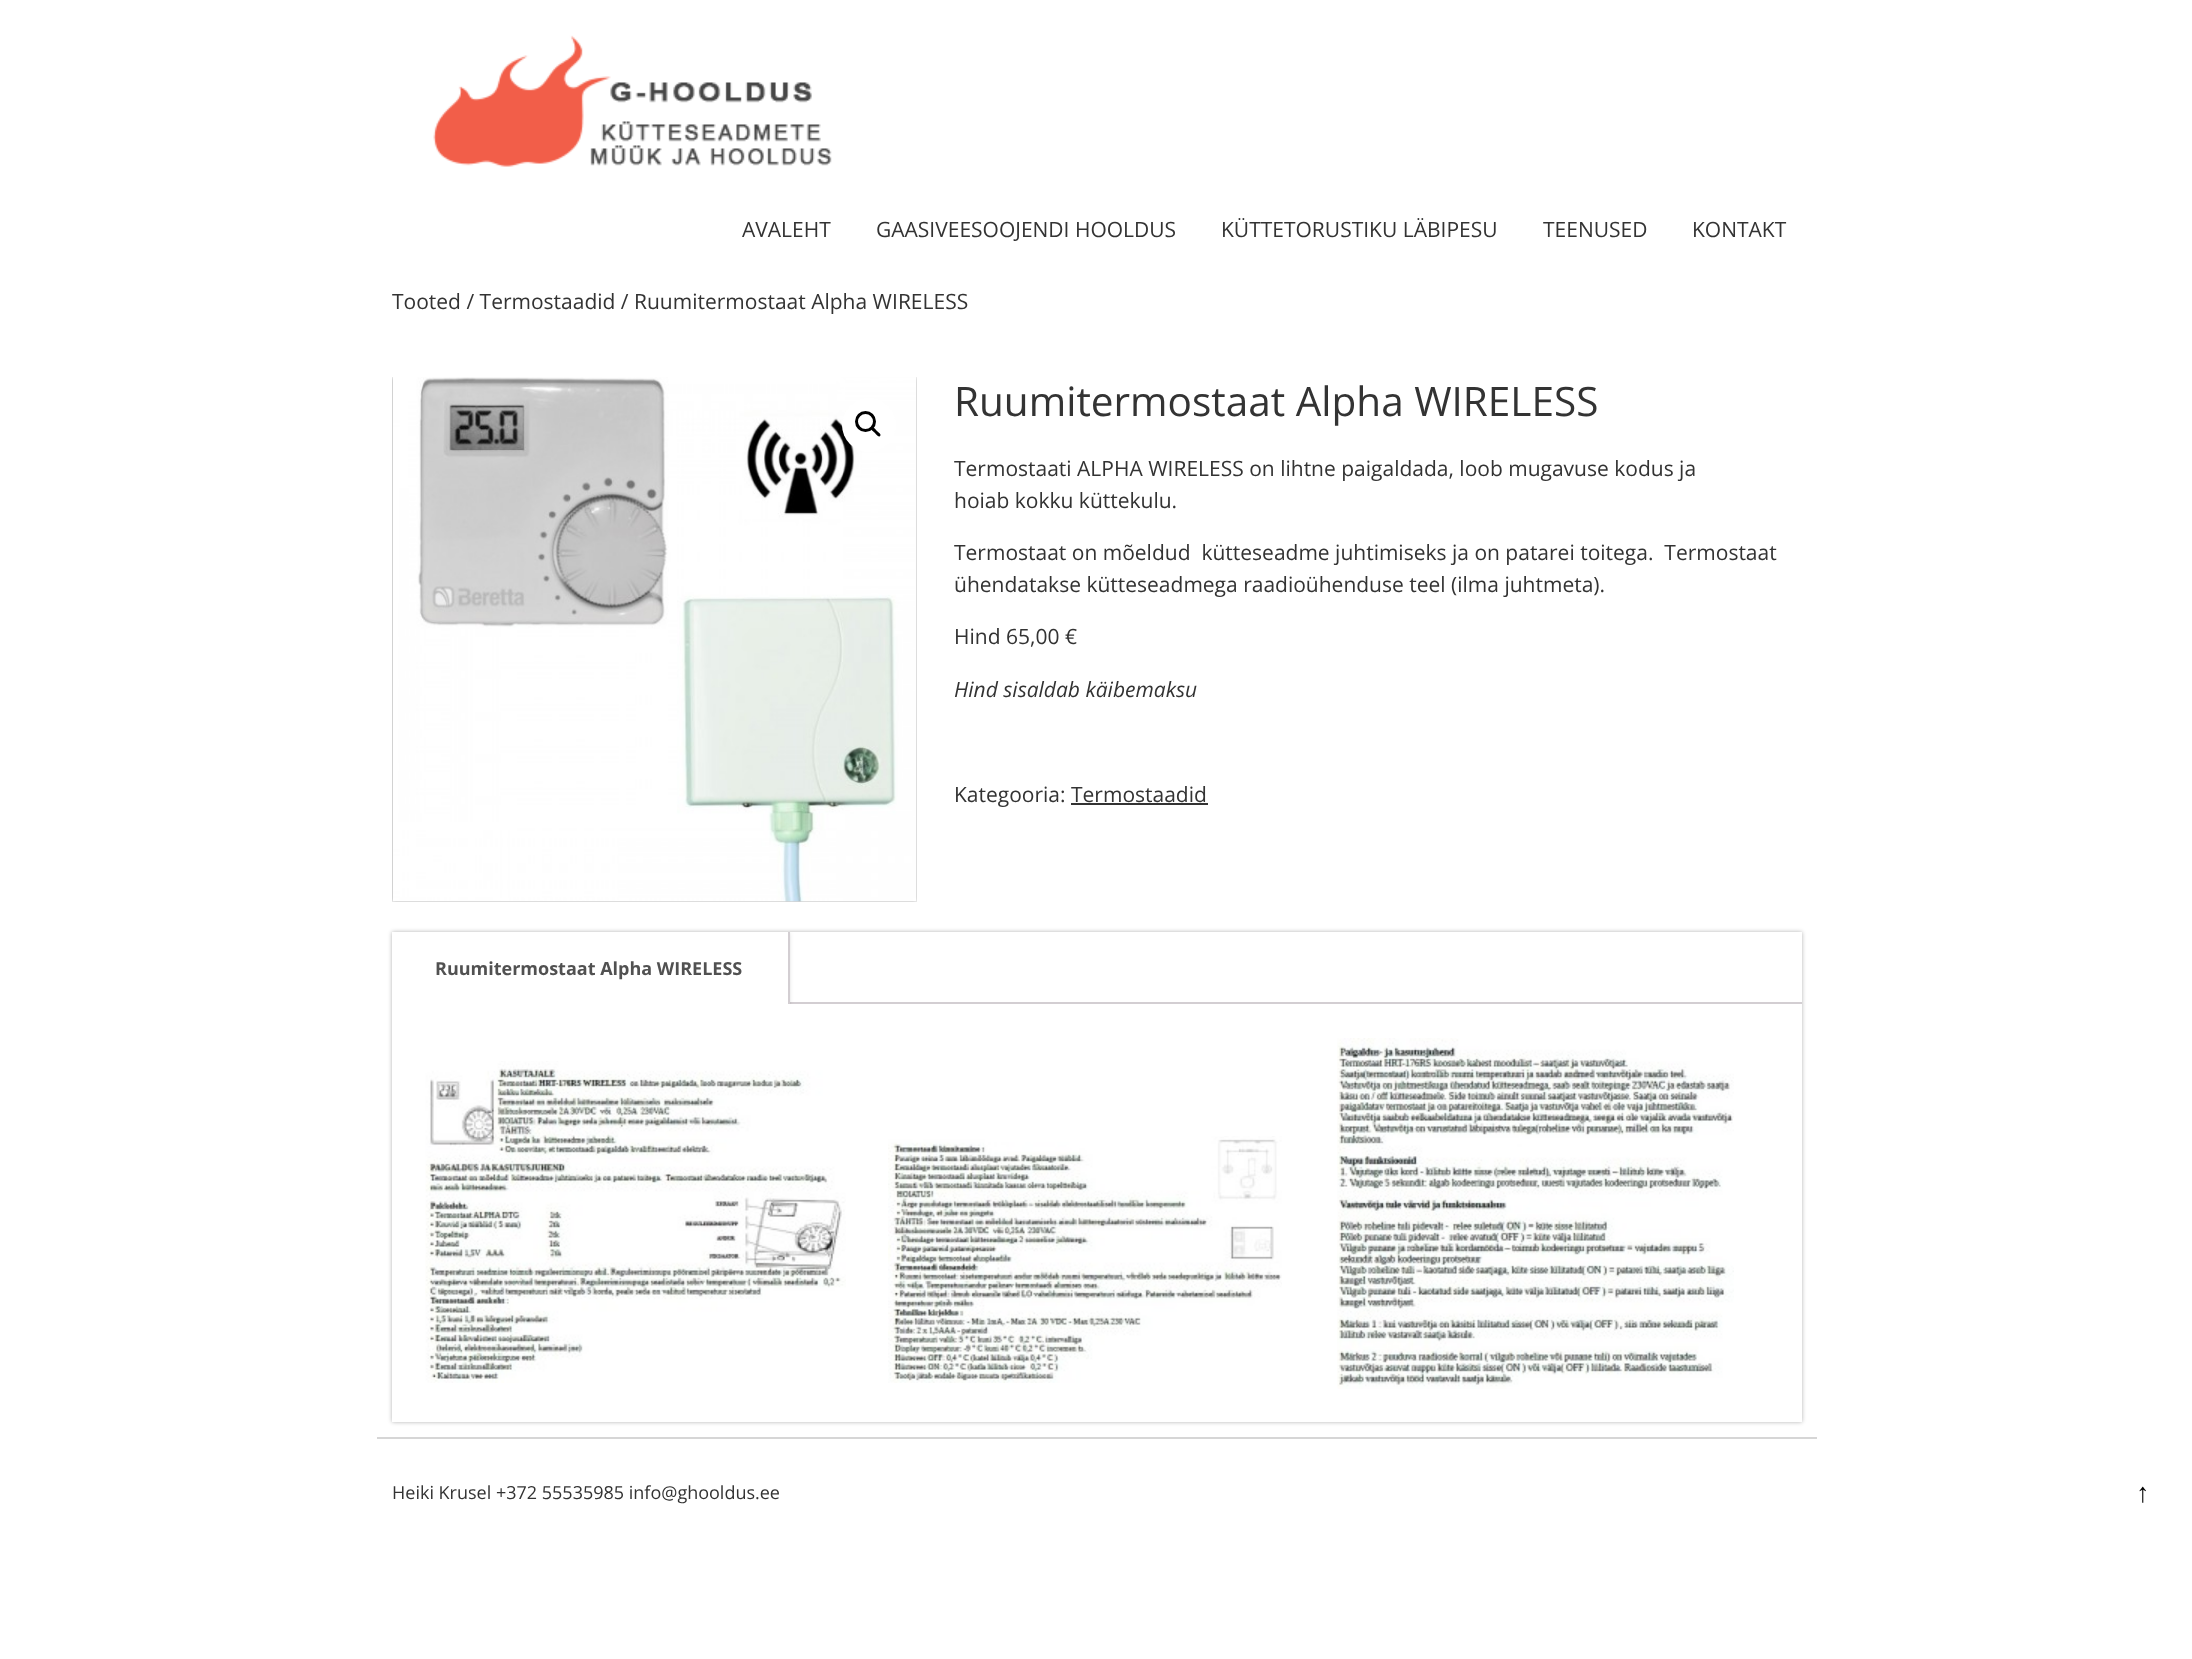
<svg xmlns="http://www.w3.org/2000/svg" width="2192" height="1659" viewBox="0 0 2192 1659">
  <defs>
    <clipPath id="clip1"><rect x="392" y="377" width="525" height="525"/></clipPath>
    <filter id="blur1" x="-50%" y="-200%" width="200%" height="500%"><feGaussianBlur stdDeviation="2"/></filter>
    <clipPath id="clip2"><path d="M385 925H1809V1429H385ZM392 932H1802V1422H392Z" clip-rule="evenodd"/></clipPath>
    <clipPath id="clip3"><rect x="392" y="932" width="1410" height="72"/></clipPath>
  </defs>
  <rect width="100%" height="100%" fill="#ffffff"/>
  <image x="433" y="35" width="399" height="132" href="img1.png"/>
  <text x="742" y="237" font-family="Open Sans" font-size="21" fill="#333333">AVALEHT</text>
  <text x="876" y="237" font-family="Open Sans" font-size="21" fill="#333333">GAASIVEESOOJENDI HOOLDUS</text>
  <text x="1221" y="237" font-family="Open Sans" font-size="21" fill="#333333">KÜTTETORUSTIKU LÄBIPESU</text>
  <text x="1543" y="237" font-family="Open Sans" font-size="21" fill="#333333">TEENUSED</text>
  <text x="1692" y="237" font-family="Open Sans" font-size="21" fill="#333333">KONTAKT</text>
  <text x="392" y="309" font-family="Open Sans" font-size="21" fill="#333333">Tooted / Termostaadid / Ruumitermostaat Alpha WIRELESS</text>
  <g clip-path="url(#clip1)">
    <rect x="392" y="377" width="525" height="525" fill="#000000" fill-opacity="0.3" filter="url(#blur1)"/>
  </g>
  <image x="393" y="377" width="524" height="525" href="img2.png"/>
  <circle cx="869" cy="425" r="27" fill="#ffffff"/>
  <circle cx="865.5" cy="421.5" r="9" fill="none" stroke="#000000" stroke-width="3"/>
  <path d="M872 428C873.5 426 876 430 877 431C878 432 882 434.5 880 436C878.5 438 876 434 875 433C874 432 870 429.5 872 428Z" fill="#000000"/>
  <text x="954" y="416" font-family="Open Sans" font-size="40.5" fill="#333333">Ruumitermostaat Alpha WIRELESS</text>
  <text x="954" y="476" font-family="Open Sans" font-size="21" fill="#333333">Termostaati ALPHA WIRELESS on lihtne paigaldada, loob mugavuse kodus ja</text>
  <text x="954" y="508" font-family="Open Sans" font-size="21" fill="#333333">hoiab kokku küttekulu.</text>
  <text x="954" y="560" font-family="Open Sans" font-size="21" fill="#333333" xml:space="preserve">Termostaat on mõeldud  kütteseadme juhtimiseks ja on patarei toitega.  Termostaat</text>
  <text x="954" y="592" font-family="Open Sans" font-size="21" fill="#333333">ühendatakse kütteseadmega raadioühenduse teel (ilma juhtmeta).</text>
  <text x="954" y="644" font-family="Open Sans" font-size="21" fill="#333333">Hind 65,00 €</text>
  <text x="954" y="697" font-family="Open Sans" font-size="21" font-style="italic" fill="#333333">Hind sisaldab käibemaksu</text>
  <text x="954" y="802" font-family="Open Sans" font-size="21" fill="#333333">Kategooria: Termostaadid</text>
  <rect x="1071" y="803" width="137" height="2" fill="#333333"/>
  <g clip-path="url(#clip2)">
    <rect x="392" y="932" width="1410" height="490" fill="#000000" fill-opacity="0.3" filter="url(#blur1)"/>
  </g>
  <rect x="790" y="1002" width="1012" height="2" fill="#d3ced2"/>
  <g clip-path="url(#clip3)">
    <rect x="389" y="933" width="400" height="78" fill="#000000" fill-opacity="0.2" filter="url(#blur1)"/>
  </g>
  <rect x="392" y="932" width="396" height="72" fill="#ffffff"/>
  <rect x="788" y="932" width="2" height="72" fill="#d3ced2"/>
  <text x="435" y="975" font-family="Open Sans" font-size="18" font-weight="bold" fill="#515151">Ruumitermostaat Alpha WIRELESS</text>
  <image x="425" y="1061" width="421" height="322" href="img3.png"/>
  <image x="888" y="1136" width="394" height="247" href="img4.png"/>
  <image x="1337" y="1038" width="397" height="351" href="img5.png"/>
  <rect x="377" y="1437" width="1440" height="2" fill="#d6d6d6"/>
  <text x="392" y="1499" font-family="Open Sans" font-size="18" fill="#333333">Heiki Krusel +372 55535985 info@ghooldus.ee</text>
  <text x="2136" y="1502" font-family="Liberation Sans" font-size="27" fill="#010101">↑</text>
</svg>
